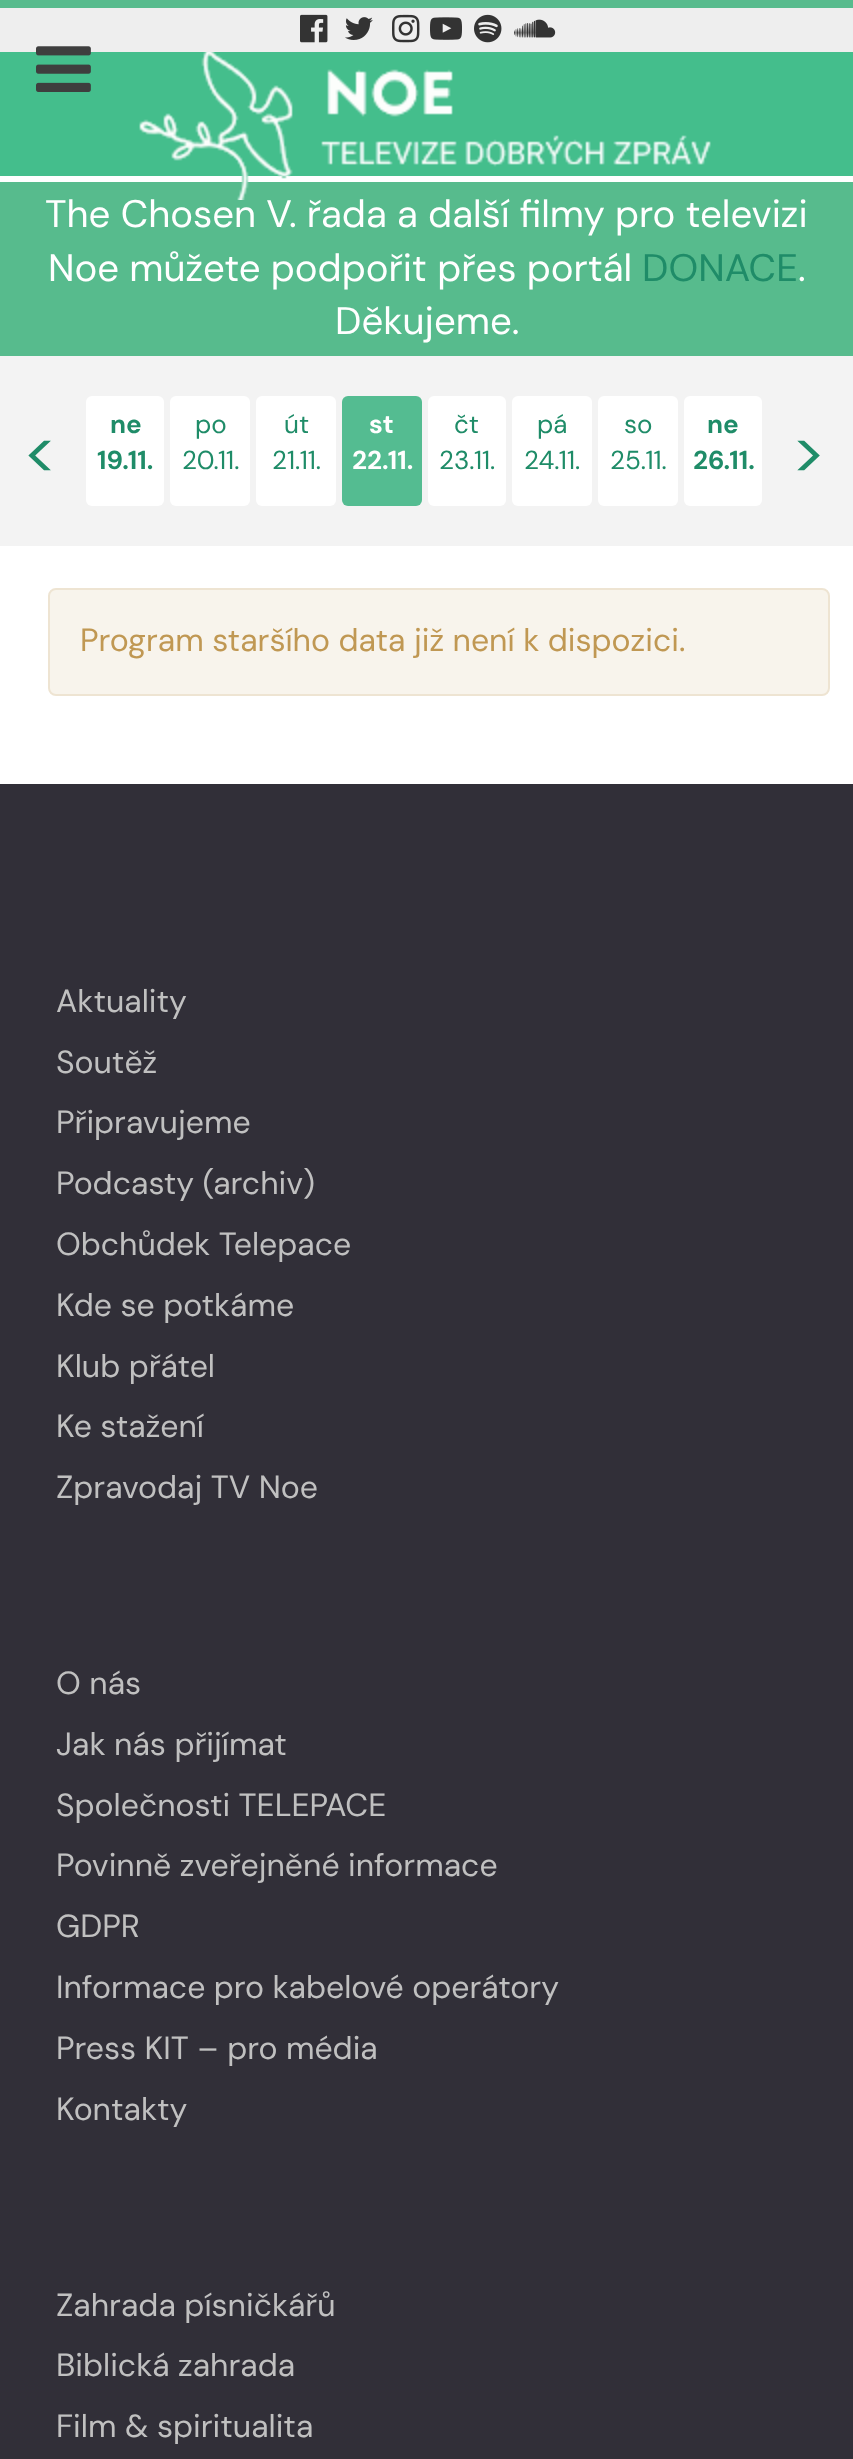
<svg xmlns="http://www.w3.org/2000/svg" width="853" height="2459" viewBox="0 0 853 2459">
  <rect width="100%" height="100%" fill="#ffffff"/>
  <rect x="0" y="8" width="853" height="44" fill="#eeeeee"/>
  <rect x="0" y="0" width="853" height="8" fill="#57bb8d"/>
  <image x="300" y="14" width="28" height="29" href="img1.png"/>
  <image x="345" y="17" width="28" height="23" href="img2.png"/>
  <image x="392" y="14" width="28" height="29" href="img3.png"/>
  <image x="430" y="17" width="32" height="23" href="img4.png"/>
  <image x="474" y="14" width="28" height="29" href="img5.png"/>
  <image x="514" y="19" width="42" height="19" href="img6.png"/>
  <rect x="0" y="52" width="853" height="124" fill="#44be8c"/>
  <image x="36" y="46" width="55" height="46" href="img7.png"/>
  <rect x="0" y="182" width="853" height="174" fill="#57bb8d"/>
  <text x="45" y="227" font-family="DM Sans" font-size="38.4" fill="#ffffff">The Chosen V. řada a další filmy pro televizi</text>
  <image x="139" y="52" width="572" height="148" href="img8.png"/>
  <text x="48" y="281" font-family="DM Sans" font-size="38.4" fill="#ffffff">Noe můžete podpořit přes portál</text>
  <text x="642" y="281" font-family="DM Sans" font-size="38.4" fill="#1f8c68">DONACE</text>
  <text x="798" y="281" font-family="DM Sans" font-size="38.4" fill="#ffffff">.</text>
  <text x="335" y="334" font-family="DM Sans" font-size="38.4" fill="#ffffff">Děkujeme.</text>
  <rect x="0" y="356" width="853" height="190" fill="#f3f3f3"/>
  <text x="22" y="473" font-family="DM Sans" font-size="64" fill="#1f8c68">&lt;</text>
  <rect x="86" y="396" width="78" height="110" rx="6" fill="#ffffff"/>
  <text x="110" y="433" font-family="DM Sans" font-size="26" font-weight="bold" fill="#1f8c68">ne</text>
  <text x="97" y="469" font-family="DM Sans" font-size="26" font-weight="bold" fill="#1f8c68">19.11.</text>
  <rect x="170" y="396" width="80" height="110" rx="6" fill="#ffffff"/>
  <text x="195" y="433" font-family="DM Sans" font-size="26" fill="#1f8c68">po</text>
  <text x="182" y="469" font-family="DM Sans" font-size="26" fill="#1f8c68">20.11.</text>
  <rect x="256" y="396" width="80" height="110" rx="6" fill="#ffffff"/>
  <text x="284" y="433" font-family="DM Sans" font-size="26" fill="#1f8c68">út</text>
  <text x="272" y="469" font-family="DM Sans" font-size="26" fill="#1f8c68">21.11.</text>
  <rect x="342" y="396" width="80" height="110" rx="6" fill="#54bc91"/>
  <text x="369" y="433" font-family="DM Sans" font-size="26" font-weight="bold" fill="#ffffff">st</text>
  <text x="352" y="469" font-family="DM Sans" font-size="26" font-weight="bold" fill="#ffffff">22.11.</text>
  <rect x="428" y="396" width="78" height="110" rx="6" fill="#ffffff"/>
  <text x="454" y="433" font-family="DM Sans" font-size="26" fill="#1f8c68">čt</text>
  <text x="439" y="469" font-family="DM Sans" font-size="26" fill="#1f8c68">23.11.</text>
  <rect x="512" y="396" width="80" height="110" rx="6" fill="#ffffff"/>
  <text x="537" y="433" font-family="DM Sans" font-size="26" fill="#1f8c68">pá</text>
  <text x="524" y="469" font-family="DM Sans" font-size="26" fill="#1f8c68">24.11.</text>
  <rect x="598" y="396" width="80" height="110" rx="6" fill="#ffffff"/>
  <text x="624" y="433" font-family="DM Sans" font-size="26" fill="#1f8c68">so</text>
  <text x="610" y="469" font-family="DM Sans" font-size="26" fill="#1f8c68">25.11.</text>
  <rect x="684" y="396" width="78" height="110" rx="6" fill="#ffffff"/>
  <text x="707" y="433" font-family="DM Sans" font-size="26" font-weight="bold" fill="#1f8c68">ne</text>
  <text x="693" y="469" font-family="DM Sans" font-size="26" font-weight="bold" fill="#1f8c68">26.11.</text>
  <text x="791" y="473" font-family="DM Sans" font-size="64" fill="#1f8c68">&gt;</text>
  <rect x="49" y="589" width="780" height="106" rx="7" fill="#f8f4ec" stroke="#eee4d2" stroke-width="2"/>
  <text x="80" y="651" font-family="DM Sans" font-size="32" fill="#c09853">Program staršího data již není k dispozici.</text>
  <rect x="0" y="784" width="853" height="1675" fill="#312f38"/>
  <text x="56" y="1012" font-family="DM Sans" font-size="32" fill="#c0c0c0">Aktuality</text>
  <text x="56" y="1073" font-family="DM Sans" font-size="32" fill="#c0c0c0">Soutěž</text>
  <text x="56" y="1133" font-family="DM Sans" font-size="32" fill="#c0c0c0">Připravujeme</text>
  <text x="56" y="1194" font-family="DM Sans" font-size="32" fill="#c0c0c0">Podcasty (archiv)</text>
  <text x="56" y="1255" font-family="DM Sans" font-size="32" fill="#c0c0c0">Obchůdek Telepace</text>
  <text x="56" y="1316" font-family="DM Sans" font-size="32" fill="#c0c0c0">Kde se potkáme</text>
  <text x="56" y="1377" font-family="DM Sans" font-size="32" fill="#c0c0c0">Klub přátel</text>
  <text x="56" y="1437" font-family="DM Sans" font-size="32" fill="#c0c0c0">Ke stažení</text>
  <text x="56" y="1498" font-family="DM Sans" font-size="32" fill="#c0c0c0">Zpravodaj TV Noe</text>
  <text x="56" y="1694" font-family="DM Sans" font-size="32" fill="#c0c0c0">O nás</text>
  <text x="56" y="1755" font-family="DM Sans" font-size="32" fill="#c0c0c0">Jak nás přijímat</text>
  <text x="56" y="1816" font-family="DM Sans" font-size="32" fill="#c0c0c0">Společnosti TELEPACE</text>
  <text x="56" y="1876" font-family="DM Sans" font-size="32" fill="#c0c0c0">Povinně zveřejněné informace</text>
  <text x="56" y="1937" font-family="DM Sans" font-size="32" fill="#c0c0c0">GDPR</text>
  <text x="56" y="1998" font-family="DM Sans" font-size="32" fill="#c0c0c0">Informace pro kabelové operátory</text>
  <text x="56" y="2059" font-family="DM Sans" font-size="32" fill="#c0c0c0">Press KIT – pro média</text>
  <text x="56" y="2120" font-family="DM Sans" font-size="32" fill="#c0c0c0">Kontakty</text>
  <text x="56" y="2316" font-family="DM Sans" font-size="32" fill="#c0c0c0">Zahrada písničkářů</text>
  <text x="56" y="2376" font-family="DM Sans" font-size="32" fill="#c0c0c0">Biblická zahrada</text>
  <text x="56" y="2437" font-family="DM Sans" font-size="32" fill="#c0c0c0">Film &amp; spiritualita</text>
</svg>
